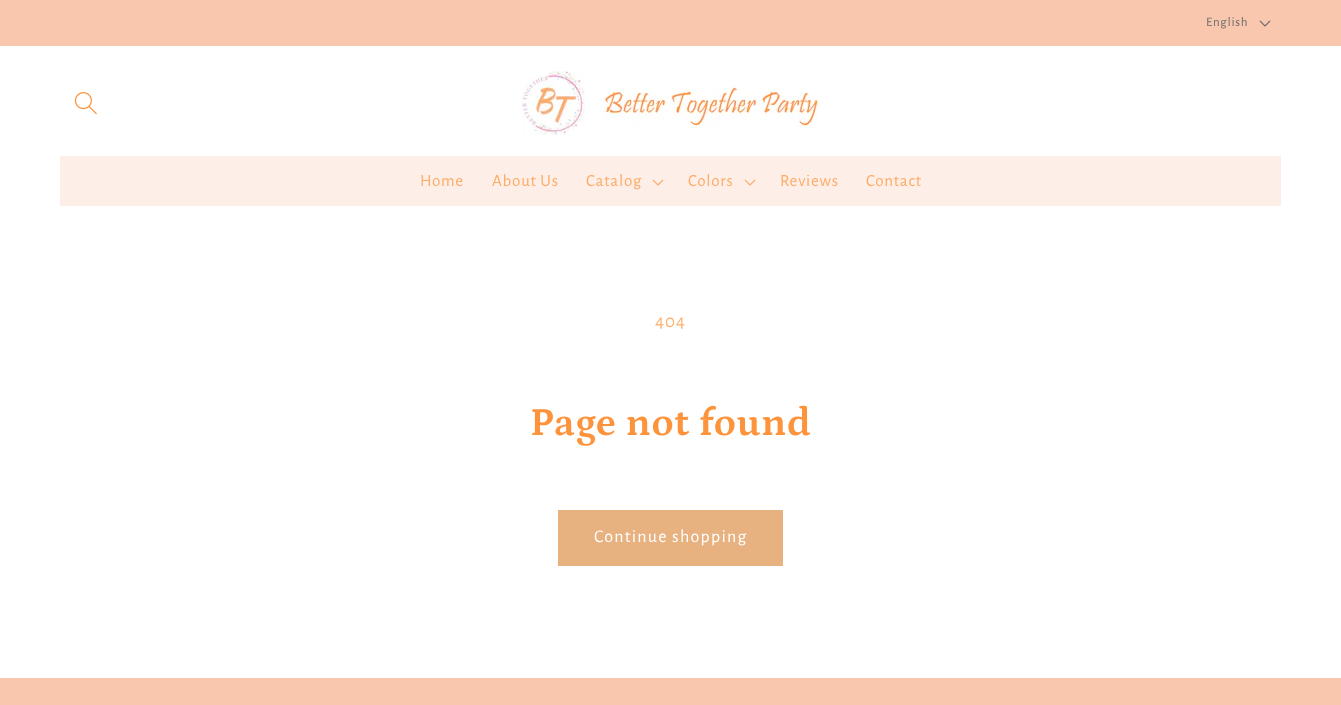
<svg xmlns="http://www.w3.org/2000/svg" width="1341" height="705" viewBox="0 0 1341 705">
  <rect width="100%" height="100%" fill="#ffffff"/>
  <rect x="0" y="0" width="1341" height="46" fill="#f9c6ae"/>
  <text x="1206" y="26" font-family="Alegreya Sans" font-size="13" letter-spacing="0.75" fill="#6e6e6e">English</text>
  <image x="1259" y="20" width="12" height="7" href="img1.png"/>
  <image x="74" y="92" width="23" height="23" href="img2.png"/>
  <image x="521" y="71" width="297" height="64" href="img3.png"/>
  <rect x="60" y="156" width="1221" height="50" fill="#fdefe8"/>
  <text x="420" y="186" font-family="Alegreya Sans" font-size="17" letter-spacing="0.75" fill="#fdab67">Home</text>
  <text x="492" y="186" font-family="Alegreya Sans" font-size="17" letter-spacing="0.75" fill="#fdab67">About Us</text>
  <text x="586" y="186" font-family="Alegreya Sans" font-size="17" letter-spacing="0.75" fill="#fdab67">Catalog</text>
  <image x="652" y="179" width="12" height="7" href="img4.png"/>
  <text x="688" y="186" font-family="Alegreya Sans" font-size="17" letter-spacing="0.75" fill="#fdab67">Colors</text>
  <image x="744" y="179" width="12" height="7" href="img4.png"/>
  <text x="780" y="186" font-family="Alegreya Sans" font-size="17" letter-spacing="0.75" fill="#fdab67">Reviews</text>
  <text x="866" y="186" font-family="Alegreya Sans" font-size="17" letter-spacing="0.75" fill="#fdab67">Contact</text>
  <text x="655" y="327" font-family="Alegreya Sans" font-size="19" letter-spacing="0.75" fill="#feaf6d">404</text>
  <text x="530" y="435" font-family="Petrona" font-size="40" font-weight="bold" letter-spacing="0.6" fill="#fd943c">Page not found</text>
  <rect x="558" y="510" width="225" height="56" fill="#e7b280"/>
  <text x="594" y="542" font-family="Alegreya Sans" font-size="18" letter-spacing="1.25" fill="#ffffff">Continue shopping</text>
  <rect x="0" y="678" width="1341" height="27" fill="#f9c6ae"/>
</svg>
